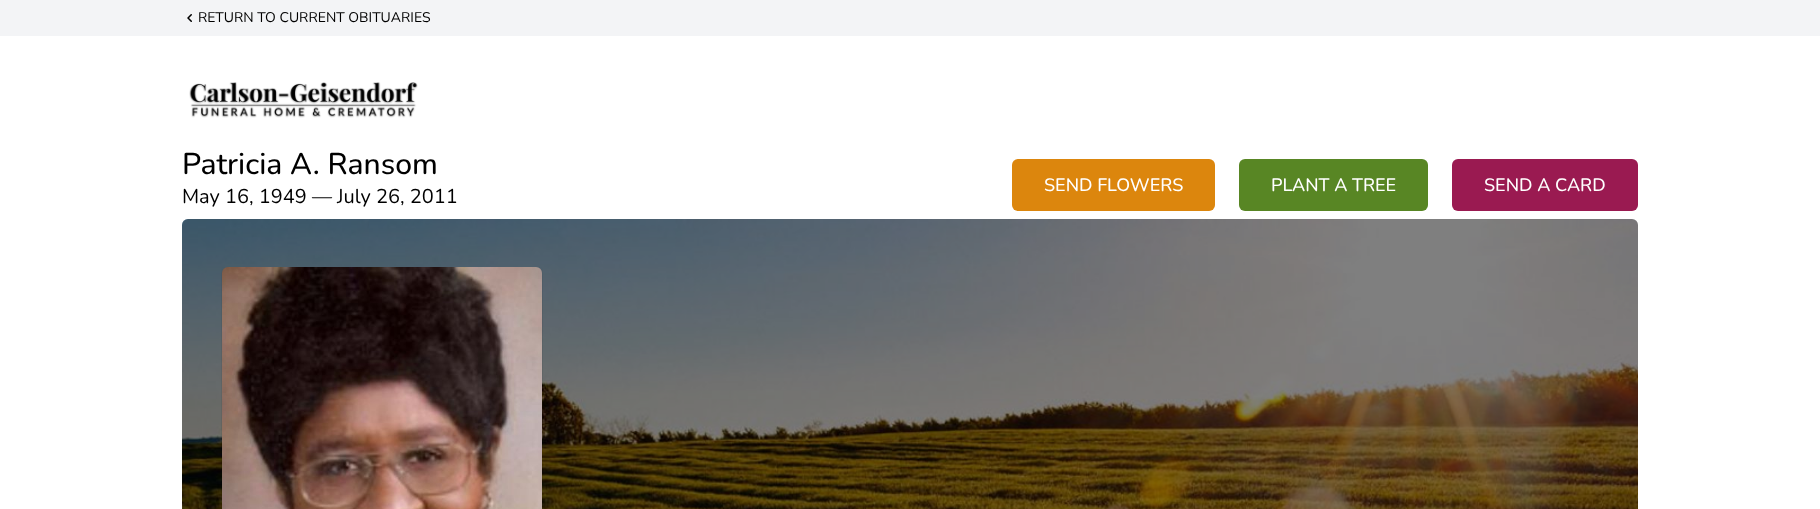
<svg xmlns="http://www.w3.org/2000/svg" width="1820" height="509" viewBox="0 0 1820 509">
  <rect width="100%" height="100%" fill="#ffffff"/>
  <rect x="0" y="0" width="1820" height="36" fill="#f3f4f6"/>
  <image x="187" y="14" width="5" height="8" href="img1.png"/>
  <text x="198" y="22" font-family="Nunito" font-size="14" fill="#000000">RETURN TO CURRENT OBITUARIES</text>
  <image x="189" y="82" width="229" height="36" href="img2.png"/>
  <text x="182" y="174" font-family="Nunito" font-size="30" font-weight="500" fill="#000000">Patricia A. Ransom</text>
  <text x="182" y="203" font-family="Nunito" font-size="20" fill="#000000">May 16, 1949 — July 26, 2011</text>
  <rect x="1012" y="159" width="203" height="52" rx="6" fill="#dc860d"/>
  <text x="1044" y="191" font-family="Nunito" font-size="18" font-weight="500" fill="#ffffff">SEND FLOWERS</text>
  <rect x="1239" y="159" width="189" height="52" rx="6" fill="#588624"/>
  <text x="1271" y="191" font-family="Nunito" font-size="18" font-weight="500" fill="#ffffff">PLANT A TREE</text>
  <rect x="1452" y="159" width="186" height="52" rx="6" fill="#9a1a51"/>
  <text x="1484" y="191" font-family="Nunito" font-size="18" font-weight="500" fill="#ffffff">SEND A CARD</text>
  <image x="182" y="219" width="1456" height="290" href="img3.png"/>
  <rect x="182" y="219" width="1456" height="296" rx="6" fill="#000000" fill-opacity="0.5"/>
  <image x="221" y="267" width="322" height="242" href="img4.png"/>
</svg>
